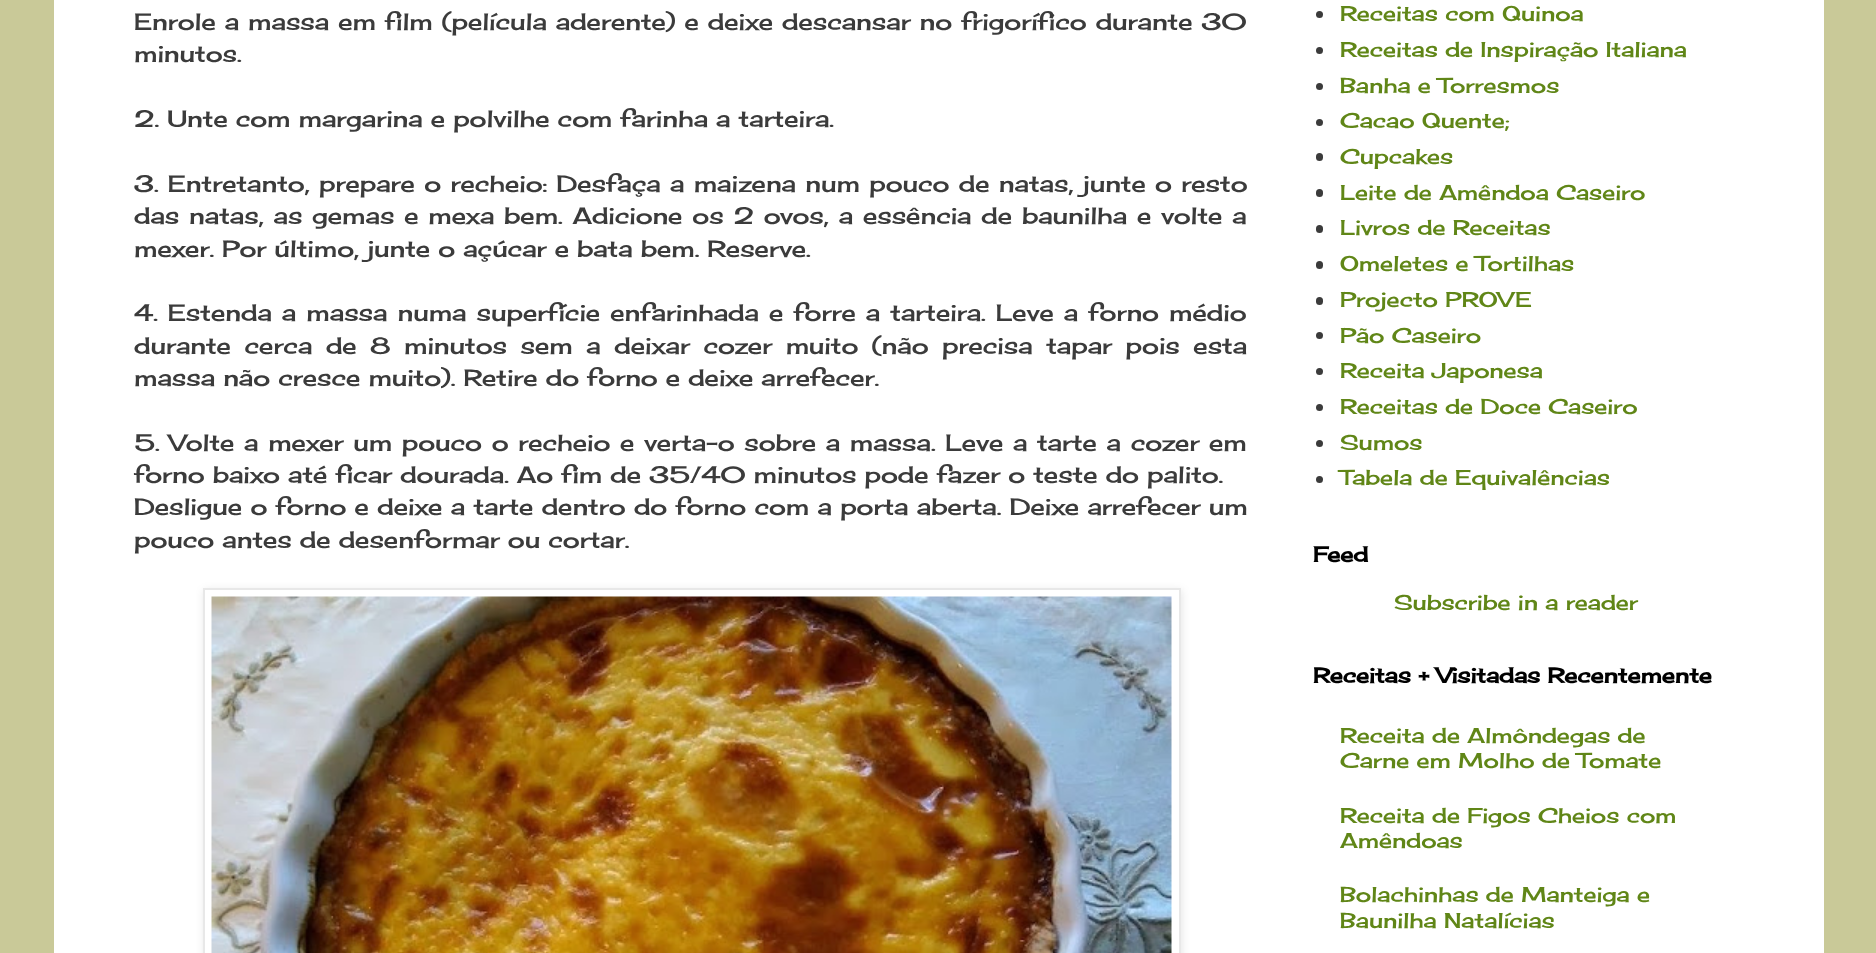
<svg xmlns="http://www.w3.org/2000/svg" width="1876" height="953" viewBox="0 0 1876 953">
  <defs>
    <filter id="blur1" x="-50%" y="-200%" width="200%" height="500%"><feGaussianBlur stdDeviation="4"/></filter>
  </defs>
  <rect width="100%" height="100%" fill="#c9c998"/>
  <rect x="54" y="0" width="1770" height="953" fill="#ffffff"/>
  <text x="134" y="30" word-spacing="0.9" font-family="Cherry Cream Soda" font-size="23.1" fill="#3b3b3b">Enrole a massa em film (película aderente) e deixe descansar no frigorífico durante 30</text>
  <text x="134" y="62" font-family="Cherry Cream Soda" font-size="23.1" fill="#3b3b3b">minutos.</text>
  <text x="134" y="127" font-family="Cherry Cream Soda" font-size="23.1" fill="#3b3b3b">2. Unte com margarina e polvilhe com farinha a tarteira.</text>
  <text x="134" y="192" word-spacing="1.25" font-family="Cherry Cream Soda" font-size="23.1" fill="#3b3b3b">3. Entretanto, prepare o recheio: Desfaça a maizena num pouco de natas, junte o resto</text>
  <text x="134" y="224" word-spacing="1.75" font-family="Cherry Cream Soda" font-size="23.1" fill="#3b3b3b">das natas, as gemas e mexa bem. Adicione os 2 ovos, a essência de baunilha e volte a</text>
  <text x="134" y="257" font-family="Cherry Cream Soda" font-size="23.1" fill="#3b3b3b">mexer. Por último, junte o açúcar e bata bem. Reserve.</text>
  <text x="134" y="321" word-spacing="2" font-family="Cherry Cream Soda" font-size="23.1" fill="#3b3b3b">4. Estenda a massa numa superfície enfarinhada e forre a tarteira. Leve a forno médio</text>
  <text x="134" y="354" word-spacing="5.5" font-family="Cherry Cream Soda" font-size="23.1" fill="#3b3b3b">durante cerca de 8 minutos sem a deixar cozer muito (não precisa tapar pois esta</text>
  <text x="134" y="386" font-family="Cherry Cream Soda" font-size="23.1" fill="#3b3b3b">massa não cresce muito). Retire do forno e deixe arrefecer.</text>
  <text x="134" y="451" word-spacing="1.6" font-family="Cherry Cream Soda" font-size="23.1" fill="#3b3b3b">5. Volte a mexer um pouco o recheio e verta-o sobre a massa. Leve a tarte a cozer em</text>
  <text x="134" y="483" font-family="Cherry Cream Soda" font-size="23.1" fill="#3b3b3b">forno baixo até ficar dourada. Ao fim de 35/40 minutos pode fazer o teste do palito.</text>
  <text x="134" y="515" word-spacing="0.25" font-family="Cherry Cream Soda" font-size="23.1" fill="#3b3b3b">Desligue o forno e deixe a tarte dentro do forno com a porta aberta. Deixe arrefecer um</text>
  <text x="134" y="548" font-family="Cherry Cream Soda" font-size="23.1" fill="#3b3b3b">pouco antes de desenformar ou cortar.</text>
  <rect x="204" y="590" width="978" height="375" fill="#000000" fill-opacity="0.1" filter="url(#blur1)"/>
  <rect x="204" y="589" width="976" height="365" fill="#ffffff" stroke="#e8e8e8" stroke-width="2"/>
  <image x="211" y="596" width="961" height="357" href="img1.png"/>
  <circle cx="1319.5" cy="14.5" r="3.5" fill="#3b3b3b"/>
  <text x="1340" y="21" font-family="Cherry Cream Soda" font-size="21" fill="#608617">Receitas com Quinoa</text>
  <circle cx="1319.5" cy="50.5" r="3.5" fill="#3b3b3b"/>
  <text x="1340" y="57" font-family="Cherry Cream Soda" font-size="21" fill="#608617">Receitas de Inspiração Italiana</text>
  <circle cx="1319.5" cy="86.5" r="3.5" fill="#3b3b3b"/>
  <text x="1340" y="93" font-family="Cherry Cream Soda" font-size="21" fill="#608617">Banha e Torresmos</text>
  <circle cx="1319.5" cy="122.5" r="3.5" fill="#3b3b3b"/>
  <text x="1340" y="128" font-family="Cherry Cream Soda" font-size="21" fill="#608617">Cacao Quente;</text>
  <rect x="1316" y="153" width="7" height="8" rx="3.5" fill="#3b3b3b"/>
  <text x="1340" y="164" font-family="Cherry Cream Soda" font-size="21" fill="#608617">Cupcakes</text>
  <rect x="1316" y="189" width="7" height="8" rx="3.5" fill="#3b3b3b"/>
  <text x="1340" y="200" font-family="Cherry Cream Soda" font-size="21" fill="#608617">Leite de Amêndoa Caseiro</text>
  <rect x="1316" y="225" width="7" height="8" rx="3.5" fill="#3b3b3b"/>
  <text x="1340" y="235" font-family="Cherry Cream Soda" font-size="21" fill="#608617">Livros de Receitas</text>
  <rect x="1316" y="261" width="7" height="8" rx="3.5" fill="#3b3b3b"/>
  <text x="1340" y="271" font-family="Cherry Cream Soda" font-size="21" fill="#608617">Omeletes e Tortilhas</text>
  <rect x="1316" y="297" width="7" height="8" rx="3.5" fill="#3b3b3b"/>
  <text x="1340" y="307" font-family="Cherry Cream Soda" font-size="21" fill="#608617">Projecto PROVE</text>
  <circle cx="1319.5" cy="335.5" r="3.5" fill="#3b3b3b"/>
  <text x="1340" y="343" font-family="Cherry Cream Soda" font-size="21" fill="#608617">Pão Caseiro</text>
  <circle cx="1319.5" cy="371.5" r="3.5" fill="#3b3b3b"/>
  <text x="1340" y="378" font-family="Cherry Cream Soda" font-size="21" fill="#608617">Receita Japonesa</text>
  <circle cx="1319.5" cy="407.5" r="3.5" fill="#3b3b3b"/>
  <text x="1340" y="414" font-family="Cherry Cream Soda" font-size="21" fill="#608617">Receitas de Doce Caseiro</text>
  <circle cx="1319.5" cy="443.5" r="3.5" fill="#3b3b3b"/>
  <text x="1340" y="450" font-family="Cherry Cream Soda" font-size="21" fill="#608617">Sumos</text>
  <circle cx="1319.5" cy="479.5" r="3.5" fill="#3b3b3b"/>
  <text x="1340" y="485" font-family="Cherry Cream Soda" font-size="21" fill="#608617">Tabela de Equivalências</text>
  <text x="1313" y="562" font-family="Cherry Cream Soda" font-size="21" font-weight="bold" fill="#000000">Feed</text>
  <text x="1394" y="610" font-family="Cherry Cream Soda" font-size="21" fill="#608617">Subscribe in a reader</text>
  <text x="1313" y="683" font-family="Cherry Cream Soda" font-size="21" font-weight="bold" fill="#000000">Receitas + Visitadas Recentemente</text>
  <text x="1340" y="743" font-family="Cherry Cream Soda" font-size="21" fill="#608617">Receita de Almôndegas de</text>
  <text x="1340" y="768" font-family="Cherry Cream Soda" font-size="21" fill="#608617">Carne em Molho de Tomate</text>
  <text x="1340" y="823" font-family="Cherry Cream Soda" font-size="21" fill="#608617">Receita de Figos Cheios com</text>
  <text x="1340" y="848" font-family="Cherry Cream Soda" font-size="21" fill="#608617">Amêndoas</text>
  <text x="1340" y="902" font-family="Cherry Cream Soda" font-size="21" fill="#608617">Bolachinhas de Manteiga e</text>
  <text x="1340" y="928" font-family="Cherry Cream Soda" font-size="21" fill="#608617">Baunilha Natalícias</text>
</svg>
